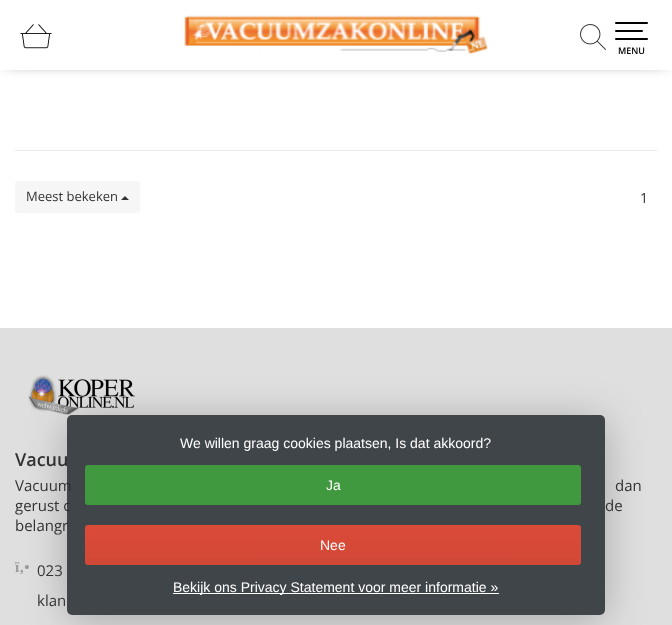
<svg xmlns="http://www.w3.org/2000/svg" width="672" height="625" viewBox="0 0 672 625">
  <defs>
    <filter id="blur1" x="-50%" y="-200%" width="200%" height="500%"><feGaussianBlur stdDeviation="10"/></filter>
    <clipPath id="clip1"><path d="M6 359H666V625H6ZM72 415H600C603 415 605 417 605 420V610C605 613 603 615 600 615H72C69 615 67 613 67 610V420C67 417 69 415 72 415Z" clip-rule="evenodd"/></clipPath>
    <filter id="blur2" x="-50%" y="-200%" width="200%" height="500%"><feGaussianBlur stdDeviation="20"/></filter>
    <linearGradient id="g1" gradientUnits="userSpaceOnUse" x1="333" y1="525" x2="333" y2="565"><stop offset="0" stop-color="#dc4a38"/><stop offset="1" stop-color="#d14836"/></linearGradient>
  </defs>
  <rect width="100%" height="100%" fill="#ffffff"/>
  <rect x="6" y="6" width="660" height="48" fill="#000000" filter="url(#blur1)"/>
  <rect x="6" y="6" width="660" height="48" fill="#000000" filter="url(#blur1)"/>
  <rect x="0" y="0" width="672" height="70" fill="#ffffff"/>
  <image x="184" y="15" width="304" height="40" href="img1.png"/>
  <image x="20" y="24" width="32" height="25" href="img2.png"/>
  <rect x="29" y="37" width="14" height="8" fill="#ffffff"/>
  <image x="580" y="24" width="26" height="26" href="img3.png"/>
  <rect x="615" y="22" width="33" height="2" rx="1" fill="#000000"/>
  <rect x="615" y="30" width="28" height="2" rx="1" fill="#000000"/>
  <rect x="615" y="38" width="33" height="2" rx="1" fill="#000000"/>
  <text x="618" y="54" font-family="Open Sans" font-size="9" font-weight="600" fill="#000000">MENU</text>
  <rect x="15" y="150" width="642" height="1" fill="#eaeaea"/>
  <rect x="15" y="181" width="125" height="32" rx="3" fill="#f6f6f6"/>
  <text x="26" y="201" font-family="Open Sans" font-size="13" fill="#333333">Meest bekeken</text>
  <path d="M129 200H121L125 196Z" fill="#333333"/>
  <text x="640" y="203" font-family="Open Sans" font-size="14" fill="#333333">1</text>
  <rect x="0" y="328" width="672" height="297" fill="#dfdfdf"/>
  <image x="28" y="375" width="107" height="40" href="img4.png"/>
  <g clip-path="url(#clip1)">
    <rect x="67" y="420" width="538" height="200" rx="5" fill="#000000" fill-opacity="0.25" filter="url(#blur2)"/>
  </g>
  <text x="15" y="491" font-family="Open Sans" font-size="15" fill="#333333">Vacuum</text>
  <text x="15" y="511" font-family="Open Sans" font-size="15" fill="#333333">gerust c</text>
  <text x="15" y="531" font-family="Open Sans" font-size="15" fill="#333333">belangr</text>
  <rect x="67" y="415" width="538" height="200" rx="5" fill="#242a30" fill-opacity="0.85"/>
  <text x="180" y="448" font-family="Liberation Sans" font-size="14" fill="#ffffff">We willen graag cookies plaatsen, Is dat akkoord?</text>
  <rect x="85" y="465" width="496" height="40" rx="3" fill="#40983f"/>
  <text x="326" y="490" font-family="Liberation Sans" font-size="14" fill="#ffffff">Ja</text>
  <rect x="85" y="525" width="496" height="40" rx="3" fill="url(#g1)"/>
  <text x="320" y="550" font-family="Liberation Sans" font-size="14" fill="#ffffff">Nee</text>
  <rect x="173" y="593" width="326" height="1" fill="#ffffff"/>
  <text x="173" y="592" font-family="Liberation Sans" font-size="14" fill="#ffffff">Bekijk ons Privacy Statement voor meer informatie »</text>
  <text x="15" y="466" font-family="Open Sans" font-size="18" font-weight="600" fill="#333333">Vacuu</text>
  <text x="615" y="491" font-family="Open Sans" font-size="15" fill="#333333">dan</text>
  <text x="605" y="511" font-family="Open Sans" font-size="15" fill="#333333">de</text>
  <text x="15" y="572" font-family="Liberation Serif" font-size="15" font-weight="bold" fill="#9a9a9a">ï‚•</text>
  <text x="37" y="576" font-family="Open Sans" font-size="15" fill="#333333">023</text>
  <text x="37" y="606" font-family="Open Sans" font-size="15" fill="#333333">klan</text>
</svg>
